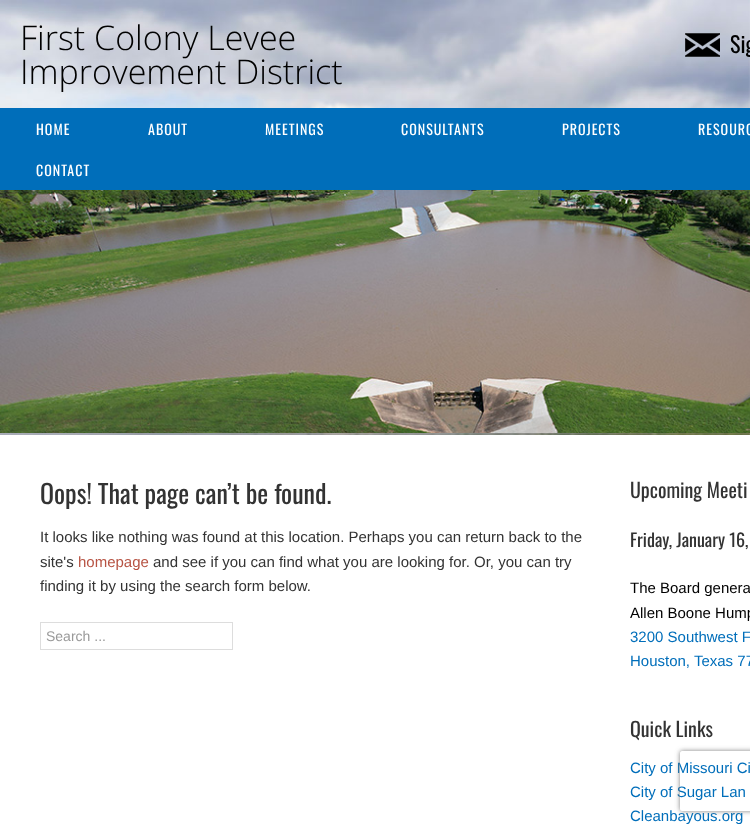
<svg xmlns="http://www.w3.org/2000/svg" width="750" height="825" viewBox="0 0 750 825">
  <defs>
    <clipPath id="clip1"><path d="M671 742H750V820H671ZM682 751H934C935 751 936 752 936 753V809C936 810 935 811 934 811H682C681 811 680 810 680 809V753C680 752 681 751 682 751Z" clip-rule="evenodd"/></clipPath>
    <filter id="blur1" x="-50%" y="-200%" width="200%" height="500%"><feGaussianBlur stdDeviation="2.5"/></filter>
  </defs>
  <rect width="100%" height="100%" fill="#ffffff"/>
  <image x="0" y="0" width="750" height="435" href="img1.png"/>
  <text x="20" y="50" font-family="Open Sans" font-size="34" font-weight="300" fill="#000000">First Colony Levee</text>
  <text x="20" y="84" font-family="Open Sans" font-size="34" font-weight="300" fill="#000000">Improvement District</text>
  <image x="685" y="33" width="35" height="24" href="img2.png"/>
  <text x="730" y="53" font-family="Oswald" font-size="22" fill="#000000">Sig</text>
  <rect x="0" y="108" width="750" height="82" fill="#006eba"/>
  <text x="36" y="135" font-family="Oswald" font-size="14" letter-spacing="1" fill="#ffffff">HOME</text>
  <text x="148" y="135" font-family="Oswald" font-size="14" letter-spacing="1" fill="#ffffff">ABOUT</text>
  <text x="265" y="135" font-family="Oswald" font-size="14" letter-spacing="1" fill="#ffffff">MEETINGS</text>
  <text x="401" y="135" font-family="Oswald" font-size="14" letter-spacing="1" fill="#ffffff">CONSULTANTS</text>
  <text x="562" y="135" font-family="Oswald" font-size="14" letter-spacing="1" fill="#ffffff">PROJECTS</text>
  <text x="698" y="135" font-family="Oswald" font-size="14" letter-spacing="1" fill="#ffffff">RESOURC</text>
  <text x="36" y="176" font-family="Oswald" font-size="14" letter-spacing="1" fill="#ffffff">CONTACT</text>
  <image x="0" y="190" width="750" height="243" href="img3.png"/>
  <text x="40" y="504" font-family="Oswald" font-size="26" fill="#333333">Oops! That page can’t be found.</text>
  <text x="40" y="542" font-family="Liberation Sans" font-size="15" fill="#333333">It looks like nothing was found at this location. Perhaps you can return back to the</text>
  <text x="40" y="567" font-family="Liberation Sans" font-size="15" fill="#333333">site's</text>
  <text x="78" y="567" font-family="Liberation Sans" font-size="15" fill="#b75343">homepage</text>
  <text x="153" y="567" font-family="Liberation Sans" font-size="15" fill="#333333">and see if you can find what you are looking for. Or, you can try</text>
  <text x="40" y="591" font-family="Liberation Sans" font-size="15" fill="#333333">finding it by using the search form below.</text>
  <rect x="40.5" y="622.5" width="192" height="27" fill="none" stroke="#dddddd"/>
  <text x="46" y="641" font-family="Liberation Sans" font-size="14" fill="#999999">Search ...</text>
  <text x="630" y="498" font-family="Oswald" font-size="20" fill="#333333">Upcoming Meeti</text>
  <text x="630" y="547" font-family="Oswald" font-size="18" fill="#333333">Friday, January 16,</text>
  <text x="630" y="593" font-family="Liberation Sans" font-size="15" fill="#000000">The Board genera</text>
  <text x="630" y="618" font-family="Liberation Sans" font-size="15" fill="#000000">Allen Boone Hump</text>
  <text x="630" y="642" font-family="Liberation Sans" font-size="15" fill="#006eba">3200 Southwest F</text>
  <text x="630" y="666" font-family="Liberation Sans" font-size="15" fill="#006eba">Houston, Texas 77</text>
  <text x="630" y="737" font-family="Oswald" font-size="20" fill="#333333">Quick Links</text>
  <text x="630" y="773" font-family="Liberation Sans" font-size="15" fill="#006eba">City of Missouri Ci</text>
  <text x="630" y="797" font-family="Liberation Sans" font-size="15" fill="#006eba">City of Sugar Lan</text>
  <text x="630" y="821" font-family="Liberation Sans" font-size="15" fill="#006eba">Cleanbayous.org</text>
  <g clip-path="url(#clip1)">
    <rect x="680" y="751" width="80" height="60" rx="2" fill="#808080" filter="url(#blur1)"/>
  </g>
</svg>
